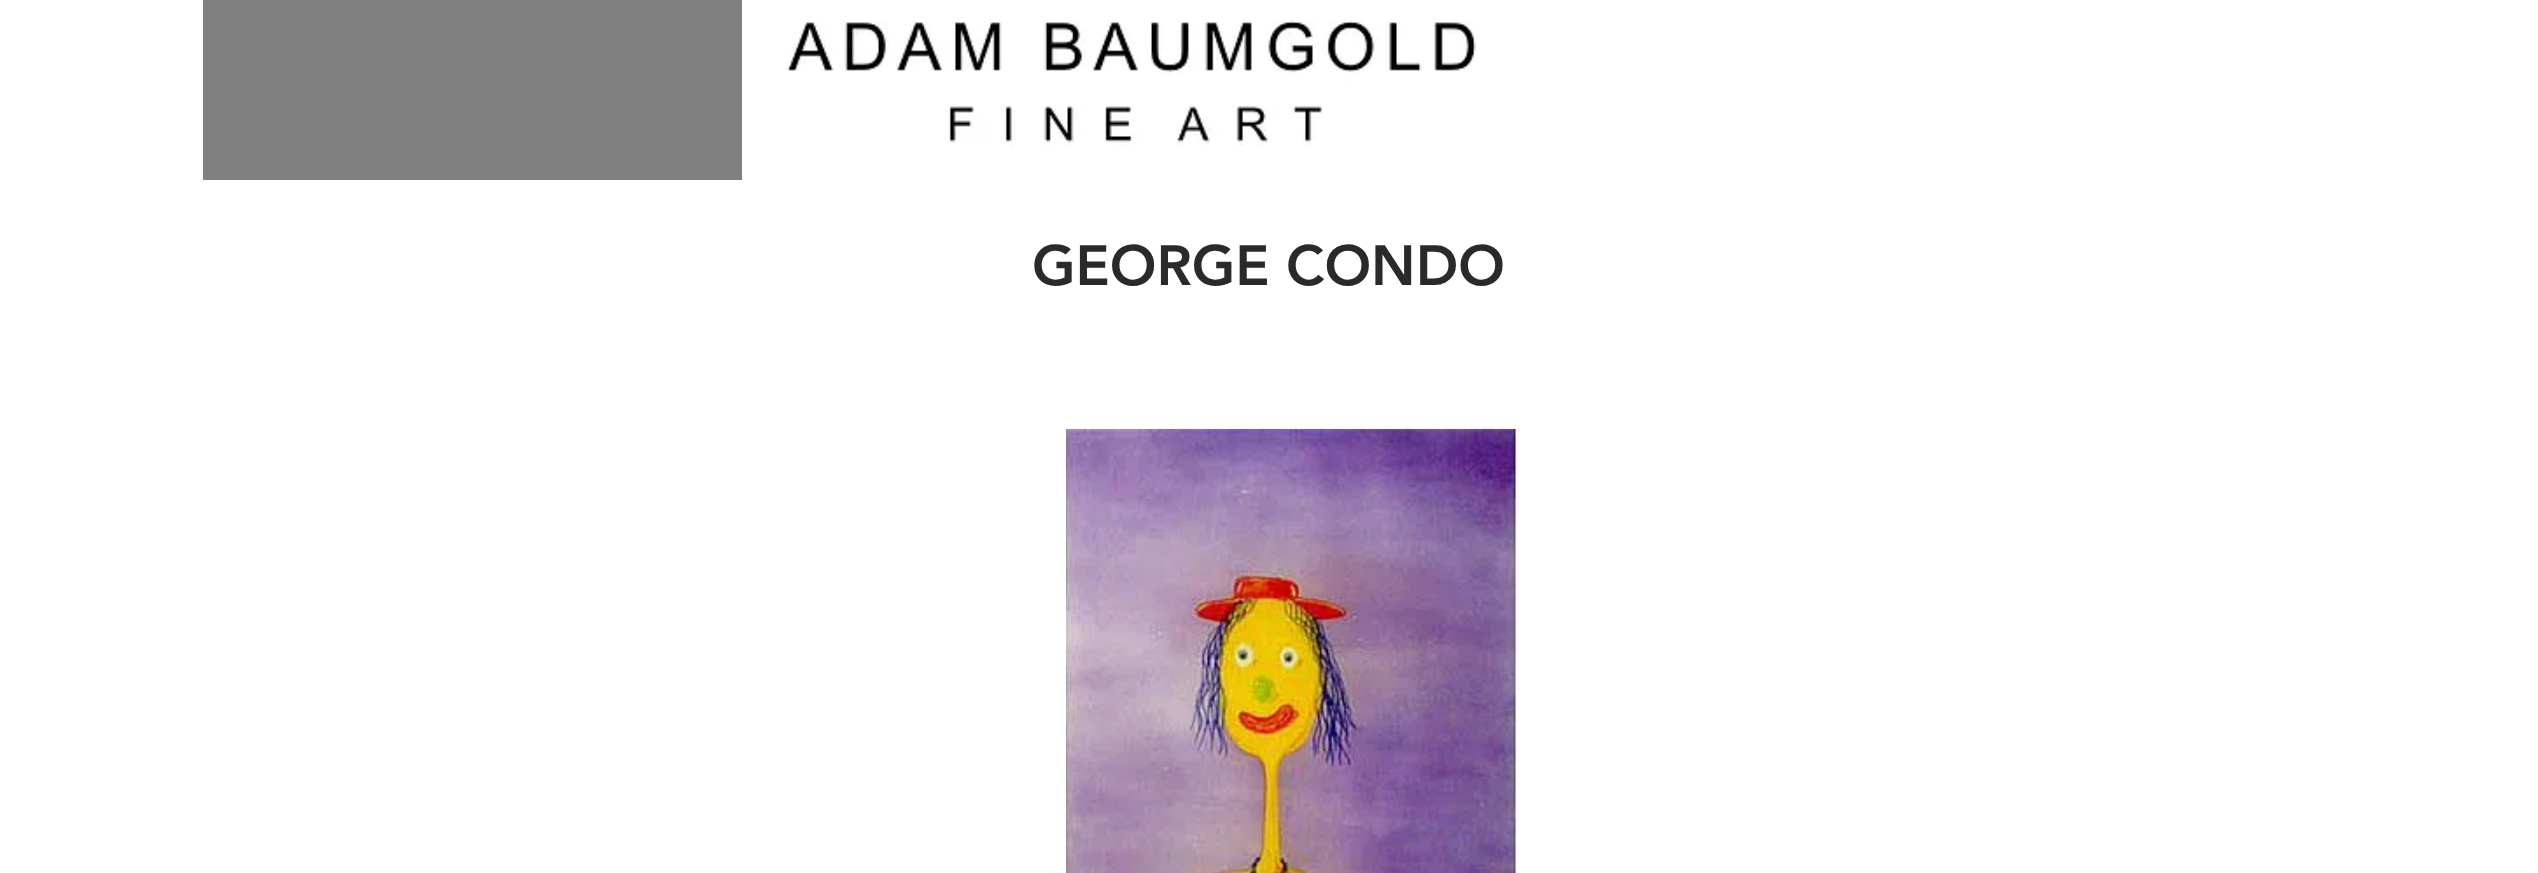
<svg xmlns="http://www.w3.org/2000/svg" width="2538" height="873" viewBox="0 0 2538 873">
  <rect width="100%" height="100%" fill="#ffffff"/>
  <rect x="203" y="0" width="539" height="180" fill="#808080"/>
  <image x="786" y="20" width="691" height="127" href="img1.png"/>
  <text x="1032" y="285" font-family="'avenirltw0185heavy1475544'" font-size="56" font-weight="900" fill="#2a2a2a">GEORGE CONDO</text>
  <image x="1065" y="428" width="452" height="445" href="img2.png"/>
</svg>
